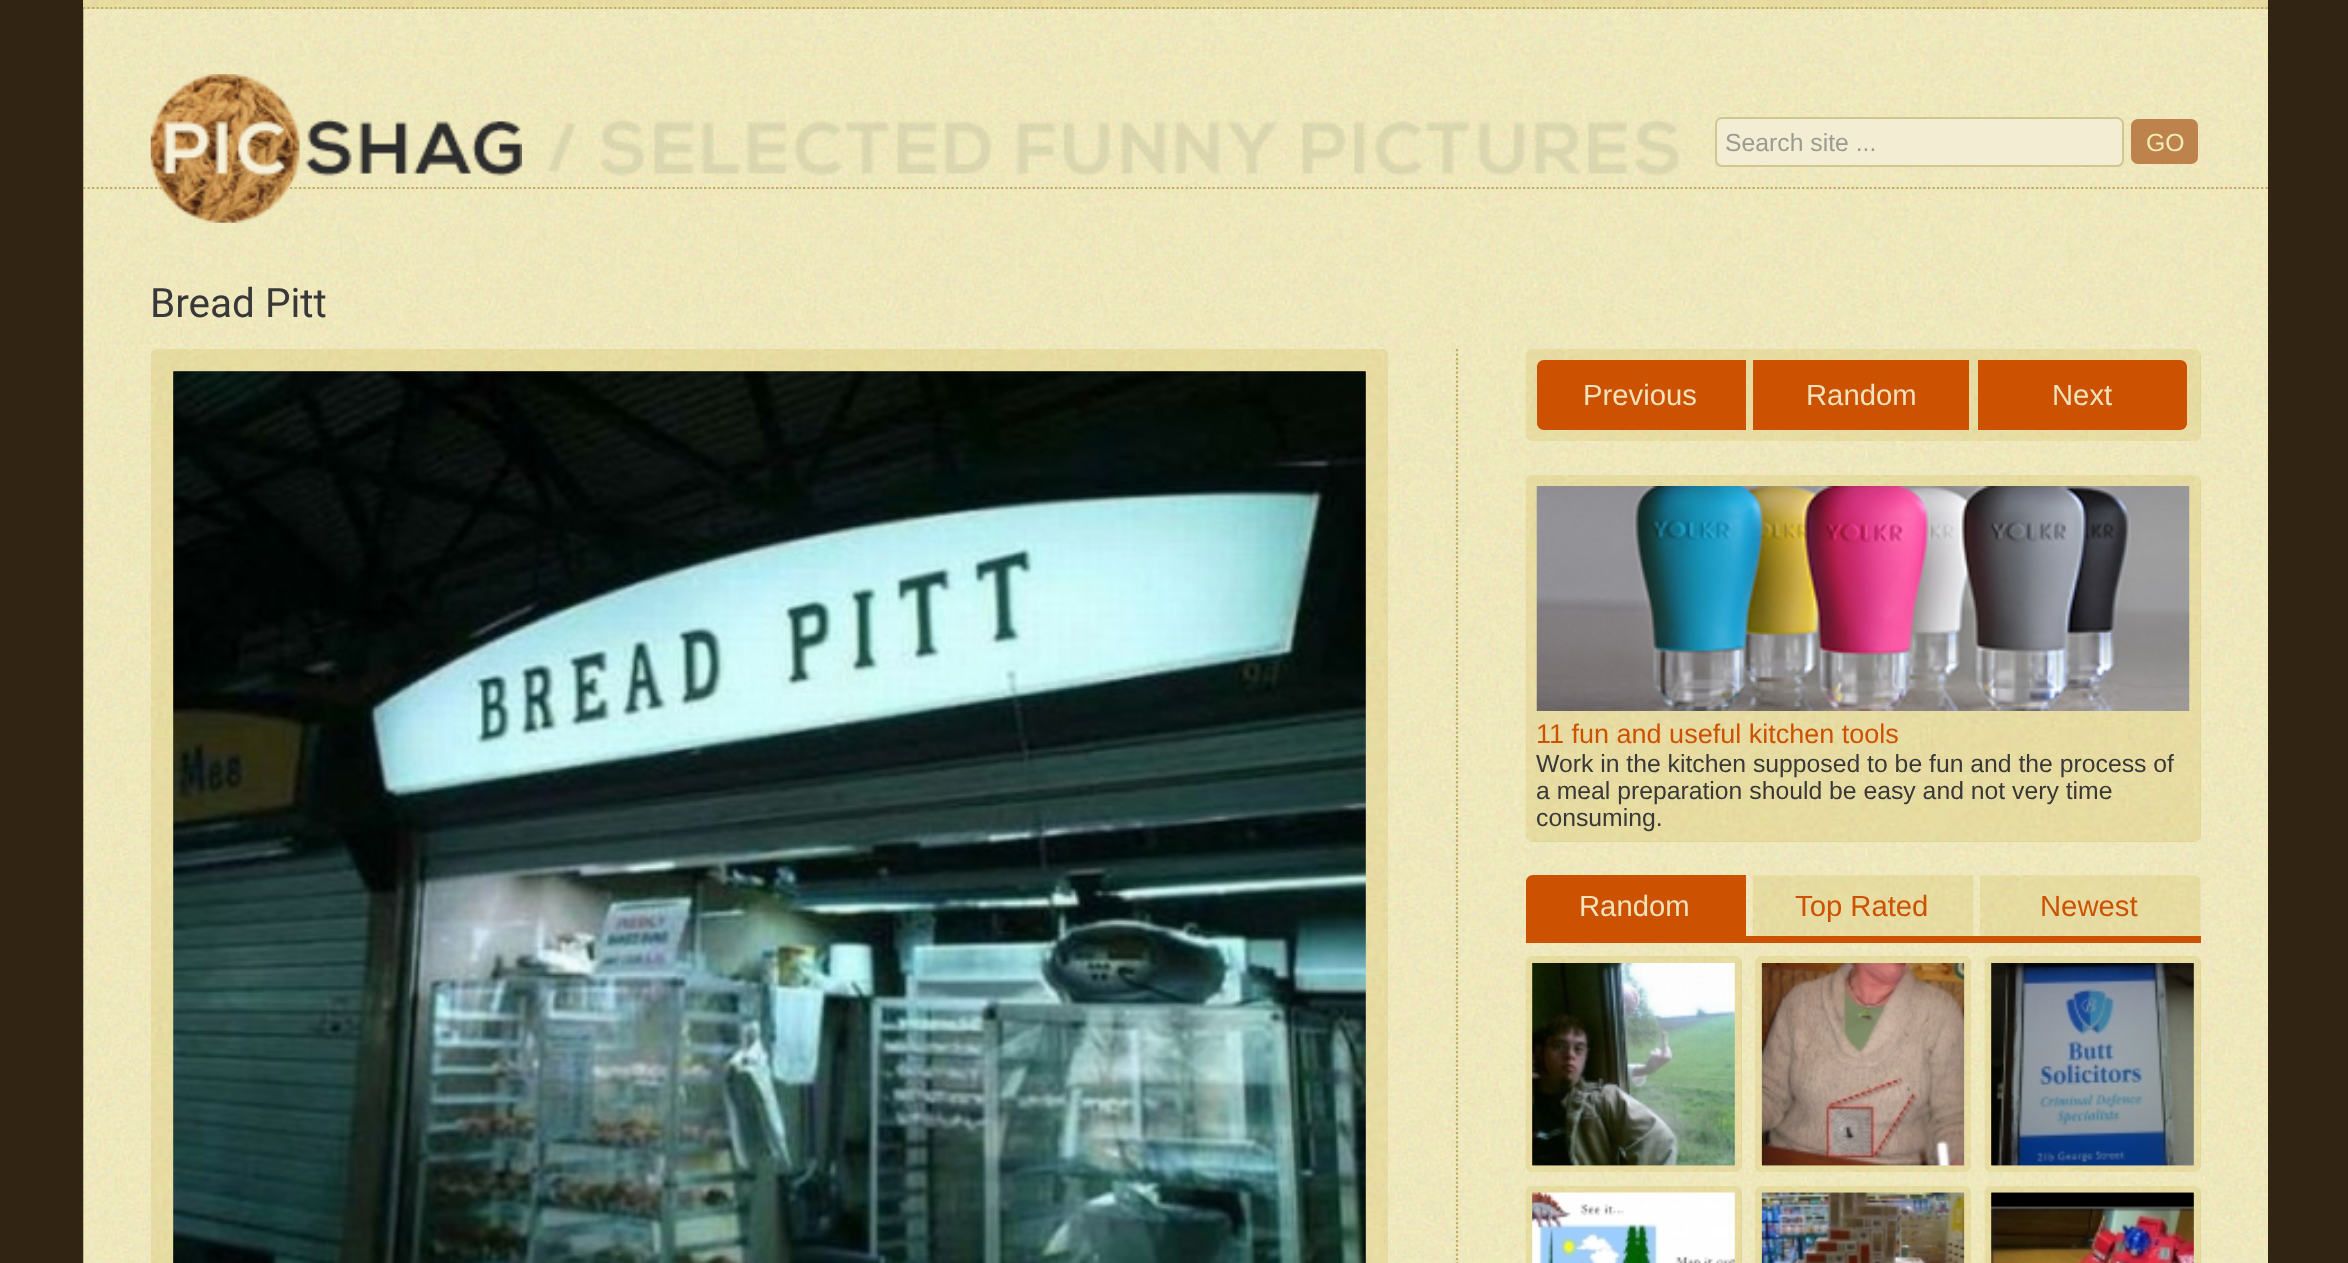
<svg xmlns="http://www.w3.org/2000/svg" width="2348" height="1263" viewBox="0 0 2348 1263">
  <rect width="100%" height="100%" fill="#312412"/>
  <image x="83" y="0" width="2185" height="1263" href="img1.png"/>
  <path d="M83 188H2268" fill="none" stroke="#bdad65" stroke-width="2.2" stroke-dasharray="2.25 2.25"/>
  <image x="83" y="0" width="2185" height="9" href="img2.png"/>
  <path d="M83 8H2268" fill="none" stroke="#bdad65" stroke-width="2.2" stroke-dasharray="2.25 2.25"/>
  <image x="150" y="74" width="372" height="149" href="img3.png"/>
  <image x="547" y="119" width="1132" height="57" href="img4.png"/>
  <rect x="1716" y="118" width="407" height="48" rx="6" fill="#f2edd3" stroke="#d2c68e" stroke-width="2"/>
  <text x="1725" y="151" font-family="Liberation Sans" font-size="24.75" fill="#9c9b93">Search site ...</text>
  <rect x="2131" y="119" width="67" height="45" rx="7" fill="#be824d"/>
  <text x="2146" y="151" font-family="Liberation Sans" font-size="24.75" fill="#f0edb8">GO</text>
  <text x="150" y="317" font-family="Roboto" font-size="40.5" fill="#383838">Bread Pitt</text>
  <image x="151" y="349" width="1237" height="914" href="img5.png"/>
  <image x="173" y="371" width="1193" height="892" href="img6.png"/>
  <path d="M1457 349V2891" fill="none" stroke="#bdad65" stroke-width="2.2" stroke-dasharray="2.25 2.25"/>
  <rect x="1526" y="349" width="675" height="92" rx="7" fill="#e0d595"/>
  <image x="1525" y="349" width="675" height="92" href="img7.png"/>
  <path d="M1544 360H1746V430H1544C1540 430 1537 427 1537 423V367C1537 363 1540 360 1544 360Z" fill="#cc5202"/>
  <text x="1583" y="405" font-family="Liberation Sans" font-size="29.25" fill="#f0e2bb">Previous</text>
  <rect x="1753" y="360" width="216" height="70" fill="#cc5202"/>
  <text x="1806" y="405" font-family="Liberation Sans" font-size="29.25" fill="#f0e2bb">Random</text>
  <path d="M1978 360H2180C2184 360 2187 363 2187 367V423C2187 427 2184 430 2180 430H1978Z" fill="#cc5202"/>
  <text x="2052" y="405" font-family="Liberation Sans" font-size="29.25" fill="#f0e2bb">Next</text>
  <rect x="1526" y="475" width="675" height="367" rx="7" fill="#e0d595"/>
  <image x="1525" y="475" width="676" height="366" href="img8.png"/>
  <image x="1536" y="486" width="654" height="225" href="img9.png"/>
  <text x="1536" y="743" font-family="Liberation Sans" font-size="27" fill="#cc5202">11 fun and useful kitchen tools</text>
  <text x="1536" y="772" font-family="Liberation Sans" font-size="24.75" fill="#383838">Work in the kitchen supposed to be fun and the process of</text>
  <text x="1536" y="799" font-family="Liberation Sans" font-size="24.75" fill="#383838">a meal preparation should be easy and not very time</text>
  <text x="1536" y="826" font-family="Liberation Sans" font-size="24.75" fill="#383838">consuming.</text>
  <rect x="1526" y="936" width="675" height="7" fill="#cc5202"/>
  <path d="M1533 875H1746V936H1526V882C1526 878 1529 875 1533 875Z" fill="#cc5202"/>
  <text x="1579" y="916" font-family="Liberation Sans" font-size="29.25" fill="#f0e2bb">Random</text>
  <image x="1752" y="875" width="222" height="61" href="img10.png"/>
  <text x="1795" y="916" font-family="Liberation Sans" font-size="29.25" fill="#cc5202">Top Rated</text>
  <image x="1980" y="875" width="221" height="61" href="img11.png"/>
  <text x="2040" y="916" font-family="Liberation Sans" font-size="29.25" fill="#cc5202">Newest</text>
  <rect x="1526" y="956" width="216" height="216" rx="7" fill="#e0d595"/>
  <image x="1525" y="956" width="217" height="216" href="img12.png"/>
  <image x="1532" y="963" width="203" height="203" href="img13.png"/>
  <rect x="1755" y="956" width="216" height="216" rx="7" fill="#e0d595"/>
  <image x="1755" y="956" width="216" height="216" href="img14.png"/>
  <image x="1761" y="963" width="204" height="203" href="img15.png"/>
  <rect x="1985" y="956" width="216" height="216" rx="7" fill="#e0d595"/>
  <image x="1984" y="956" width="217" height="216" href="img16.png"/>
  <image x="1991" y="963" width="203" height="203" href="img17.png"/>
  <rect x="1526" y="1186" width="216" height="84" rx="7" fill="#e0d595"/>
  <image x="1525" y="1186" width="217" height="77" href="img18.png"/>
  <image x="1532" y="1192" width="203" height="71" href="img19.png"/>
  <image x="1755" y="1186" width="216" height="77" href="img20.png"/>
  <image x="1761" y="1192" width="204" height="71" href="img21.png"/>
  <rect x="1985" y="1186" width="216" height="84" rx="7" fill="#e0d595"/>
  <image x="1984" y="1186" width="217" height="77" href="img22.png"/>
  <image x="1991" y="1192" width="203" height="71" href="img23.png"/>
</svg>
